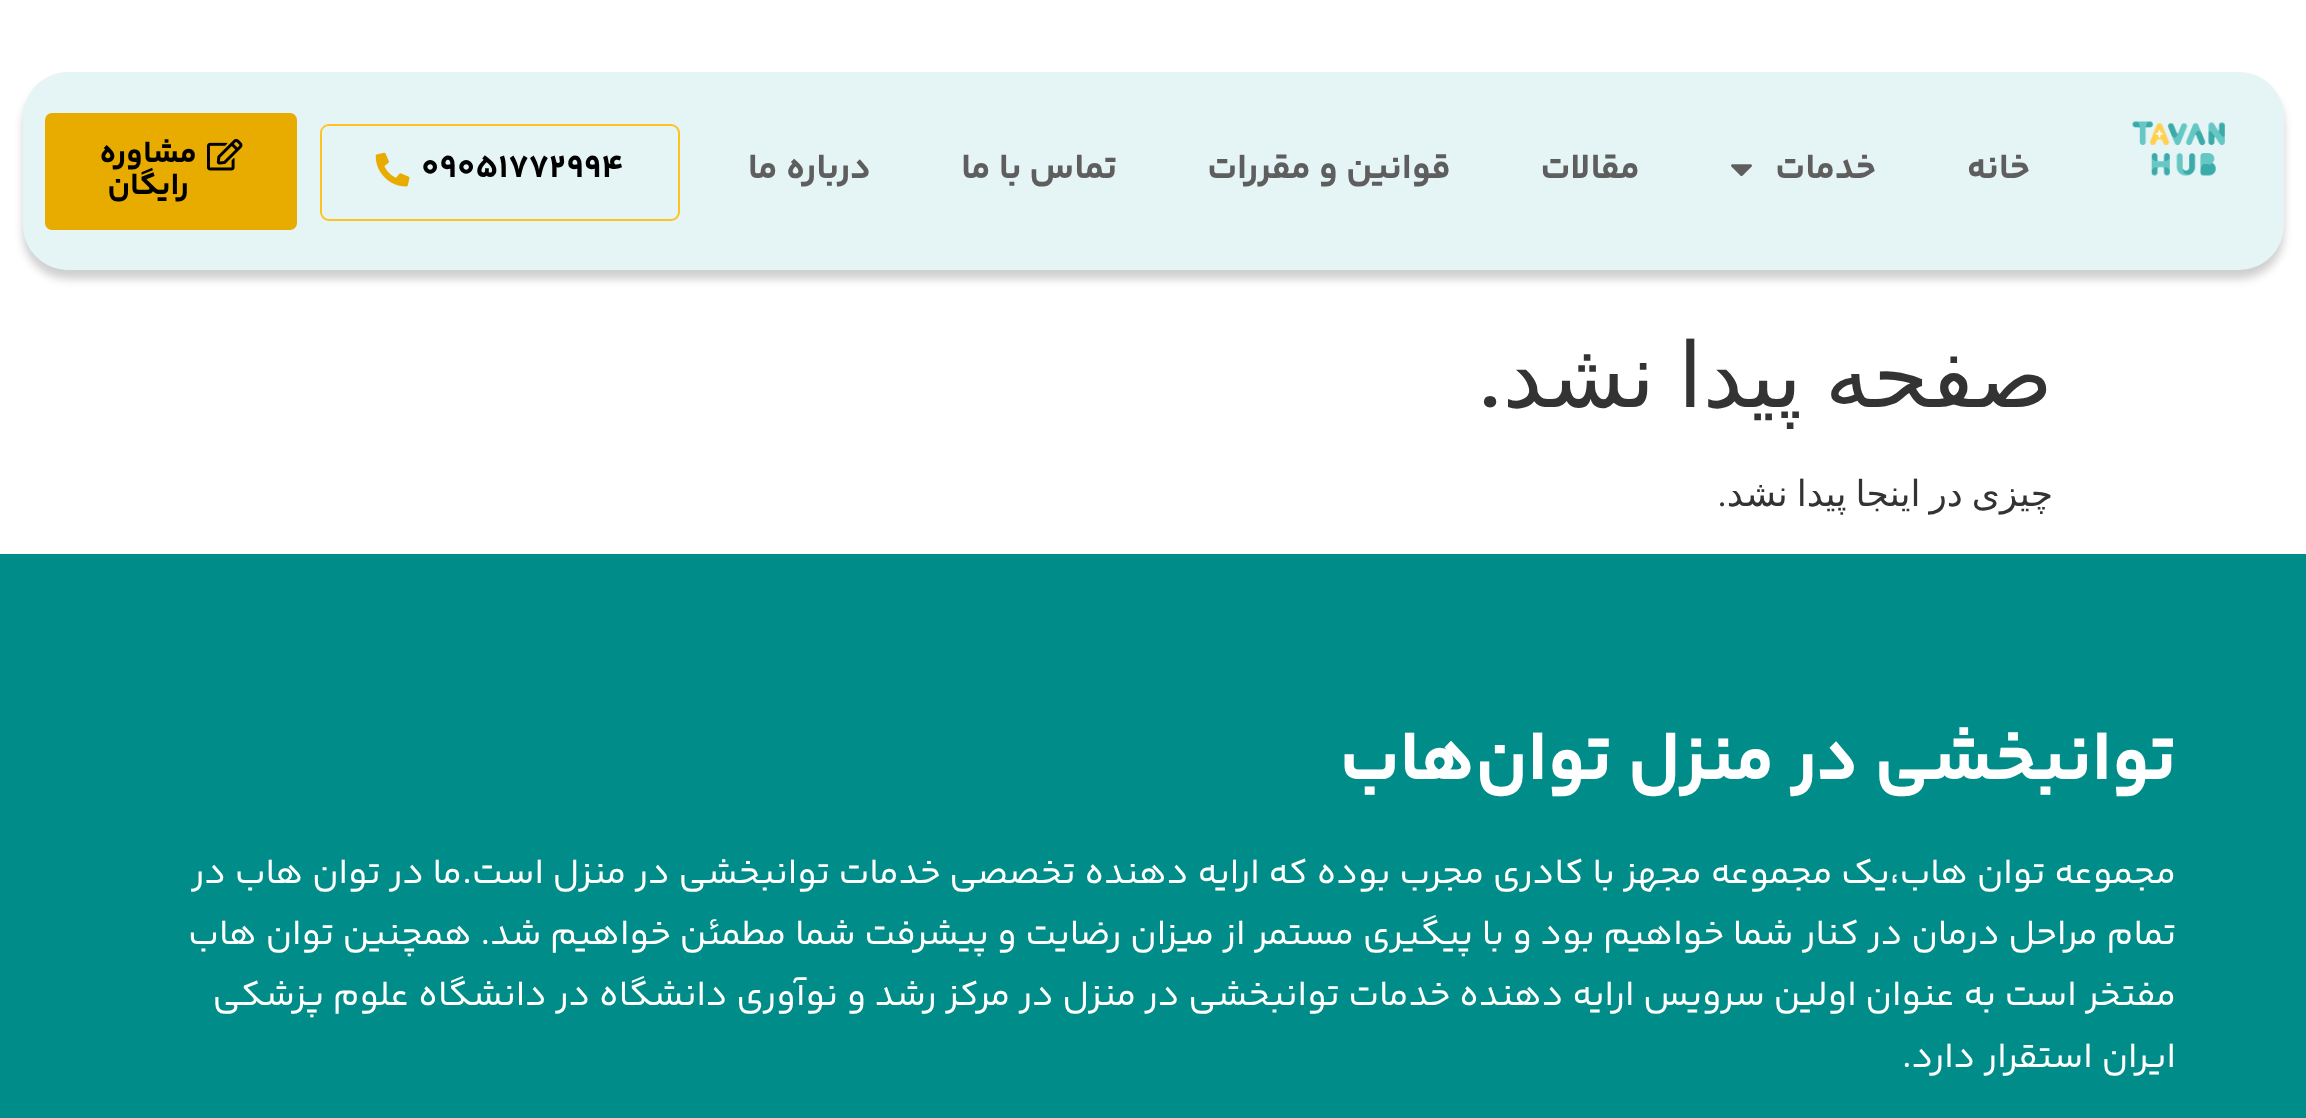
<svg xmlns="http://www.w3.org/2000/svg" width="2306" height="1118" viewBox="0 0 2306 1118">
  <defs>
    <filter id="blur1" x="-50%" y="-200%" width="200%" height="500%"><feGaussianBlur stdDeviation="4.5"/></filter>
  </defs>
  <rect width="100%" height="100%" fill="#ffffff"/>
  <rect x="23" y="81" width="2261" height="198" rx="45" fill="#000000" fill-opacity="0.19" filter="url(#blur1)"/>
  <rect x="23" y="72" width="2261" height="198" rx="45" fill="#e5f5f5"/>
  <image x="2132" y="121" width="93" height="55" href="img1.png"/>
  <text x="2030" y="178" font-family="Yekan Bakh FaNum" font-size="36" font-weight="bold" direction="rtl" fill="#5f5e5e">خانه</text>
  <text x="1876" y="178" font-family="Yekan Bakh FaNum" font-size="36" font-weight="bold" direction="rtl" fill="#5f5e5e">خدمات</text>
  <image x="1731" y="164" width="21" height="13" href="img2.png"/>
  <text x="1640" y="178" font-family="Yekan Bakh FaNum" font-size="36" font-weight="bold" direction="rtl" fill="#5f5e5e">مقالات</text>
  <text x="1451" y="178" font-family="Yekan Bakh FaNum" font-size="36" font-weight="bold" direction="rtl" fill="#5f5e5e">قوانین و مقررات</text>
  <text x="1117" y="178" font-family="Yekan Bakh FaNum" font-size="36" font-weight="bold" direction="rtl" fill="#5f5e5e">تماس با ما</text>
  <text x="871" y="178" font-family="Yekan Bakh FaNum" font-size="36" font-weight="bold" direction="rtl" fill="#5f5e5e">درباره ما</text>
  <rect x="321" y="125" width="358" height="95" rx="8" fill="none" stroke="#ffc21e" stroke-width="2"/>
  <rect x="322" y="126" width="355" height="92" rx="7" fill="#e5f5f5"/>
  <text x="421" y="177" font-family="Yekan Bakh FaNum" font-size="33.75" font-weight="bold" fill="#000000">09051772994</text>
  <image x="375" y="152" width="35" height="35" href="img3.png"/>
  <rect x="45" y="113" width="252" height="117" rx="7" fill="#e8ab00"/>
  <image x="207" y="139" width="36" height="32" href="img4.png"/>
  <text x="197" y="162" font-family="Yekan Bakh FaNum" font-size="31.5" font-weight="bold" direction="rtl" fill="#000000">مشاوره</text>
  <text x="189" y="194" font-family="Yekan Bakh FaNum" font-size="31.5" font-weight="bold" direction="rtl" fill="#000000">رایگان</text>
  <text x="2053" y="407" word-spacing="-6" font-family="DejaVu Sans" font-size="90" direction="rtl" fill="#333333">صفحه پیدا نشد</text>
  <text x="1503" y="407" font-family="Roboto" font-size="90" font-weight="500" direction="rtl" fill="#333333">.</text>
  <text x="2053" y="506" word-spacing="-2.5" font-family="DejaVu Sans" font-size="36" direction="rtl" fill="#333333">چیزی در اینجا پیدا نشد</text>
  <text x="1727" y="506" font-family="Roboto" font-size="36" direction="rtl" fill="#333333">.</text>
  <rect x="0" y="554" width="2306" height="564" fill="#008c89"/>
  <text x="2176" y="779" font-family="Yekan Bakh FaNum" font-size="72" font-weight="bold" direction="rtl" fill="#ffffff">توانبخشی در منزل توان‌هاب</text>
  <text x="2176" y="883" font-family="Yekan Bakh FaNum" font-size="36" direction="rtl" fill="#ffffff">مجموعه توان هاب،یک مجموعه مجهز با کادری مجرب بوده که ارایه دهنده تخصصی خدمات توانبخشی در منزل است.ما در توان هاب در</text>
  <text x="2176" y="944" font-family="Yekan Bakh FaNum" font-size="36" direction="rtl" fill="#ffffff">تمام مراحل درمان در کنار شما خواهیم بود و با پیگیری مستمر از میزان رضایت و پیشرفت شما مطمئن خواهیم شد. همچنین توان هاب</text>
  <text x="2176" y="1005" font-family="Yekan Bakh FaNum" font-size="36" direction="rtl" fill="#ffffff">مفتخر است به عنوان اولین سرویس ارایه دهنده خدمات توانبخشی در منزل در مرکز رشد و نوآوری دانشگاه در دانشگاه علوم پزشکی</text>
  <text x="2176" y="1067" font-family="Yekan Bakh FaNum" font-size="36" direction="rtl" fill="#ffffff">ایران استقرار دارد.</text>
</svg>
